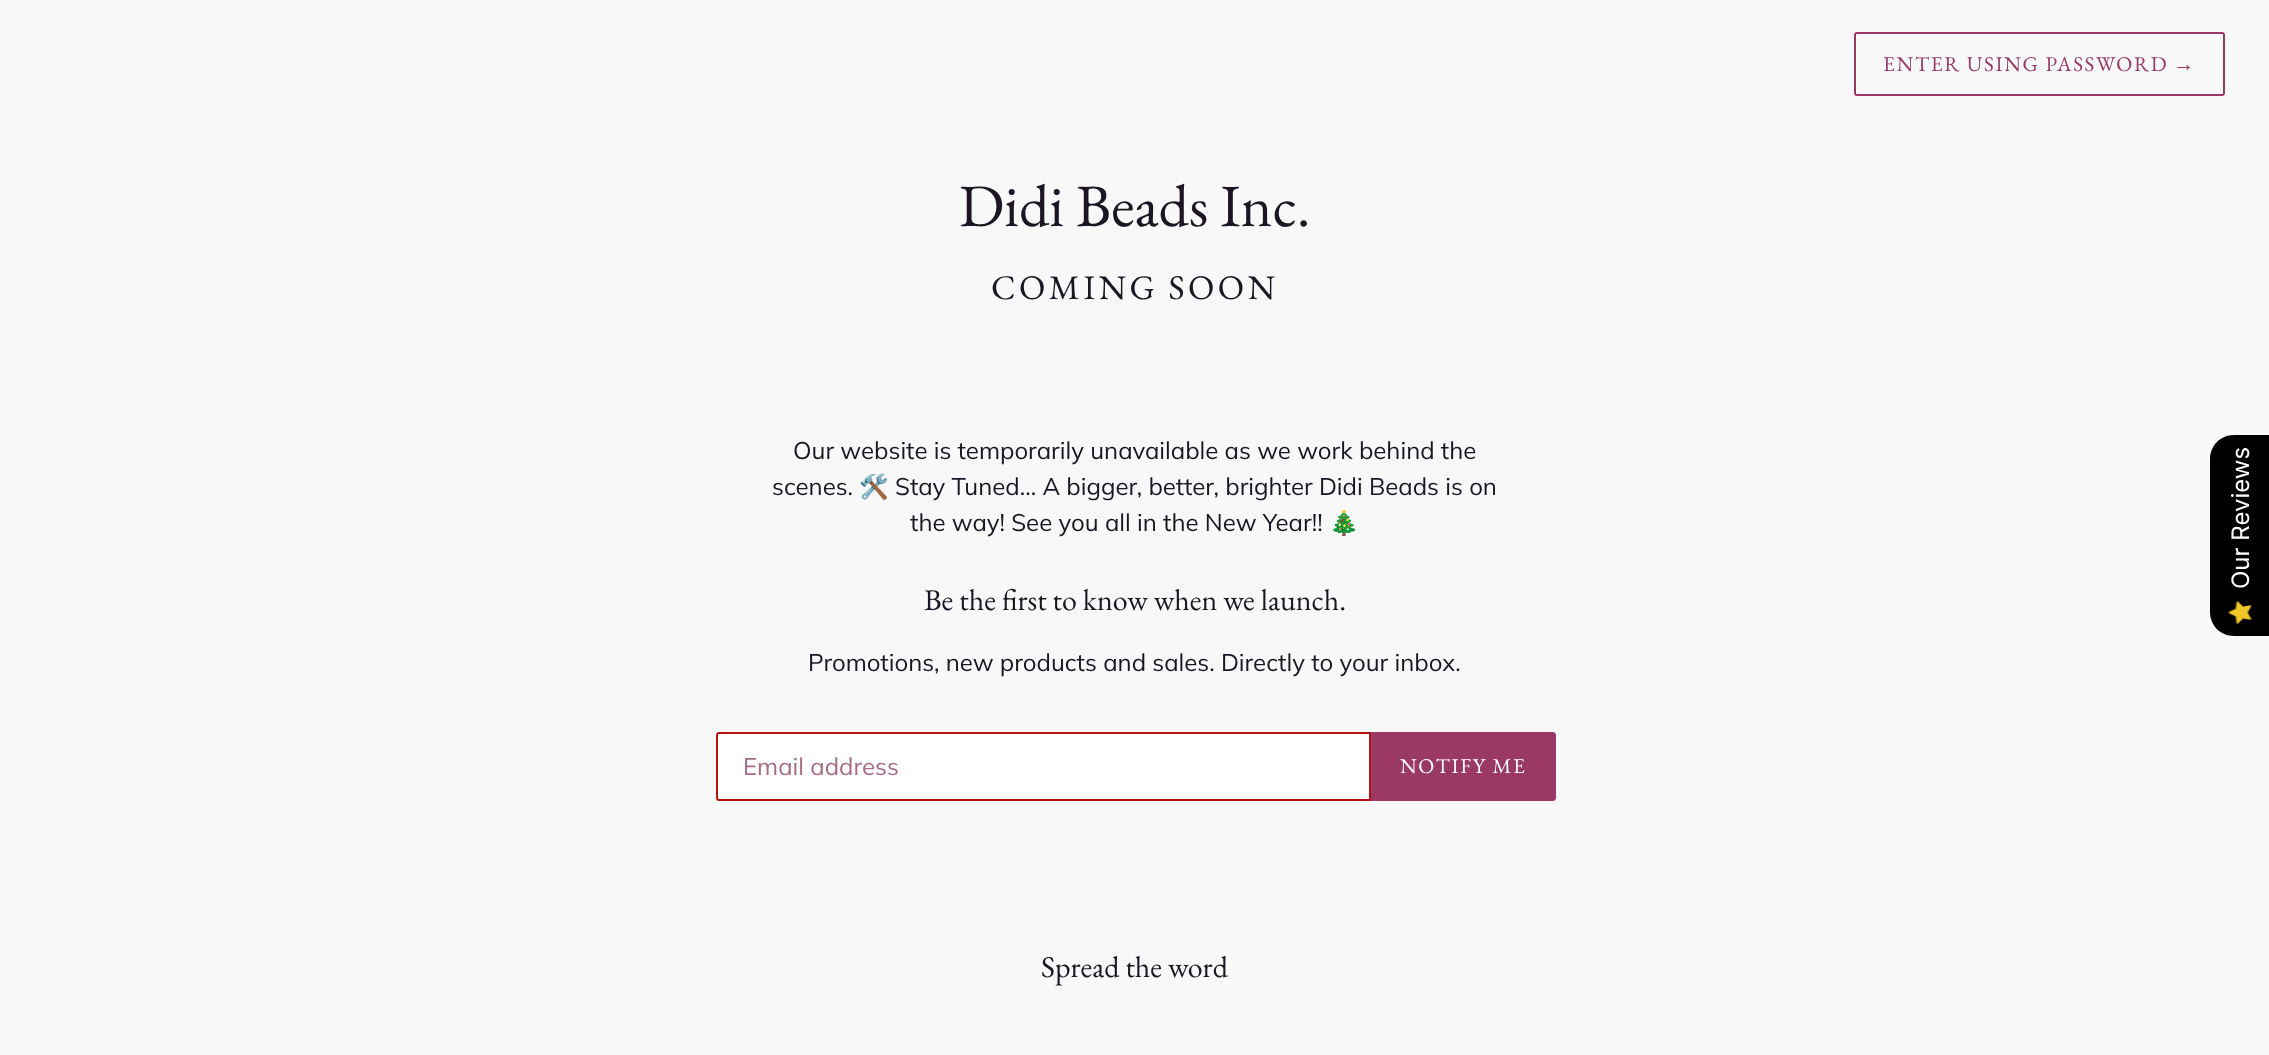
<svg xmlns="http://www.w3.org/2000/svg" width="2269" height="1055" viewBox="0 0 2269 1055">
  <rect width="100%" height="100%" fill="#f8f8f8"/>
  <rect x="1855" y="33" width="369" height="62" rx="2" fill="none" stroke="#9a3966" stroke-width="2"/>
  <text x="1883" y="71" font-family="EB Garamond" font-size="21" letter-spacing="1.7" fill="#9a3966">ENTER USING PASSWORD</text>
  <text x="2173" y="71" font-family="Liberation Serif" font-size="21" letter-spacing="1.7" fill="#9a3966">→</text>
  <text x="959" y="226" font-family="EB Garamond" font-size="60" fill="#1c1523">Didi Beads Inc.</text>
  <text x="991" y="299" font-family="EB Garamond" font-size="34.5" letter-spacing="3.5" fill="#1c1523">COMING SOON</text>
  <text x="793" y="459" font-family="Muli" font-size="24" fill="#1c1523">Our website is temporarily unavailable as we work behind the</text>
  <text x="772" y="495" font-family="Muli" font-size="24" fill="#1c1523">scenes.</text>
  <text x="859" y="495" font-family="Noto Color Emoji" font-size="24" fill="#1c1523">🛠️</text>
  <text x="895" y="495" font-family="Muli" font-size="24" fill="#1c1523">Stay Tuned… A bigger, better, brighter Didi Beads is on</text>
  <text x="910" y="531" font-family="Muli" font-size="24" fill="#1c1523">the way! See you all in the New Year!!</text>
  <text x="1329" y="531" font-family="Noto Color Emoji" font-size="24" fill="#1c1523">🎄</text>
  <text x="924" y="610" font-family="EB Garamond" font-size="30" fill="#1c1523">Be the first to know when we launch.</text>
  <text x="808" y="671" font-family="Muli" font-size="24" fill="#1c1523">Promotions, new products and sales. Directly to your inbox.</text>
  <path d="M719 733H1370V800H719C718 800 717 799 717 798V735C717 734 718 733 719 733Z" fill="#ffffff" stroke="#b41414" stroke-width="2"/>
  <text x="743" y="775" font-family="Muli" font-size="24" fill="#a76a87">Email address</text>
  <path d="M1371 732H1553C1554.5 732 1556 733.5 1556 735V798C1556 799.5 1554.5 801 1553 801H1371Z" fill="#9a3966"/>
  <text x="1400" y="773" font-family="EB Garamond" font-size="21" letter-spacing="1.7" fill="#ffffff">NOTIFY ME</text>
  <text x="1041" y="977" font-family="EB Garamond" font-size="30" fill="#1c1523">Spread the word</text>
  <path d="M2210 612V459C2210 446 2220 435 2234 435H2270V636H2234C2220 636 2210 625 2210 612Z" fill="#000000"/>
  <text x="2249" y="589" transform="rotate(-90 2249 589)" font-family="Inter" font-size="24" fill="#ffffff">Our Reviews</text>
  <image x="2228" y="601" width="24" height="23" href="img1.png"/>
</svg>
